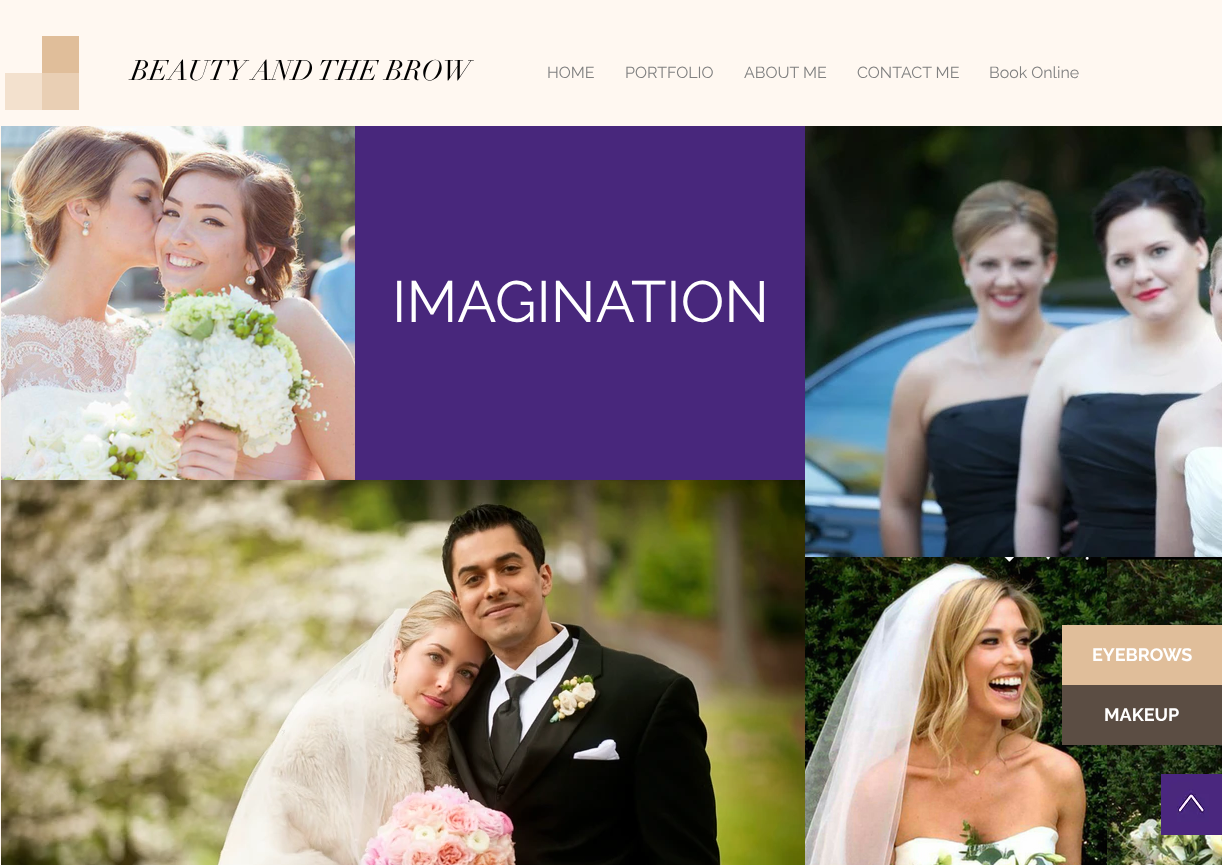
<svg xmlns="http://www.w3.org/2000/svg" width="1222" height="865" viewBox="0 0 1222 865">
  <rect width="100%" height="100%" fill="#fff8f1"/>
  <rect x="42" y="36" width="37" height="37" fill="#e0be9a"/>
  <rect x="42" y="73" width="37" height="37" fill="#e9cfb4"/>
  <rect x="5" y="73" width="37" height="37" fill="#f3e1ce"/>
  <text x="131" y="80" font-family="didot" font-size="28" fill="#000000">BEAUTY AND THE BROW</text>
  <text x="547" y="78" font-family="Raleway" font-size="16" font-weight="100" fill="#808080">HOME</text>
  <text x="625" y="78" font-family="Raleway" font-size="16" font-weight="100" fill="#808080">PORTFOLIO</text>
  <text x="744" y="78" font-family="Raleway" font-size="16" font-weight="100" fill="#808080">ABOUT ME</text>
  <text x="857" y="78" font-family="Raleway" font-size="16" font-weight="100" fill="#808080">CONTACT ME</text>
  <text x="989" y="78" font-family="Raleway" font-size="16" font-weight="100" fill="#808080">Book Online</text>
  <image x="1" y="126" width="354" height="354" href="img1.png"/>
  <rect x="355" y="126" width="450" height="354" fill="#48277c"/>
  <text x="392" y="322" font-family="Raleway" font-size="58" font-weight="100" fill="#ffffff">IMAGINATION</text>
  <image x="805" y="126" width="417" height="431" href="img2.png"/>
  <image x="1" y="480" width="804" height="385" href="img3.png"/>
  <image x="805" y="557" width="302" height="308" href="img4.png"/>
  <image x="1107" y="557" width="115" height="308" href="img5.png"/>
  <rect x="1062" y="625" width="160" height="60" fill="#e0be9a"/>
  <text x="1092" y="661" font-family="Raleway" font-size="18" font-weight="bold" fill="#ffffff">EYEBROWS</text>
  <rect x="1062" y="685" width="160" height="60" fill="#5b4d43"/>
  <text x="1104" y="721" font-family="Raleway" font-size="18" font-weight="bold" fill="#ffffff">MAKEUP</text>
  <image x="1161" y="774" width="61" height="61" href="img6.png"/>
</svg>
